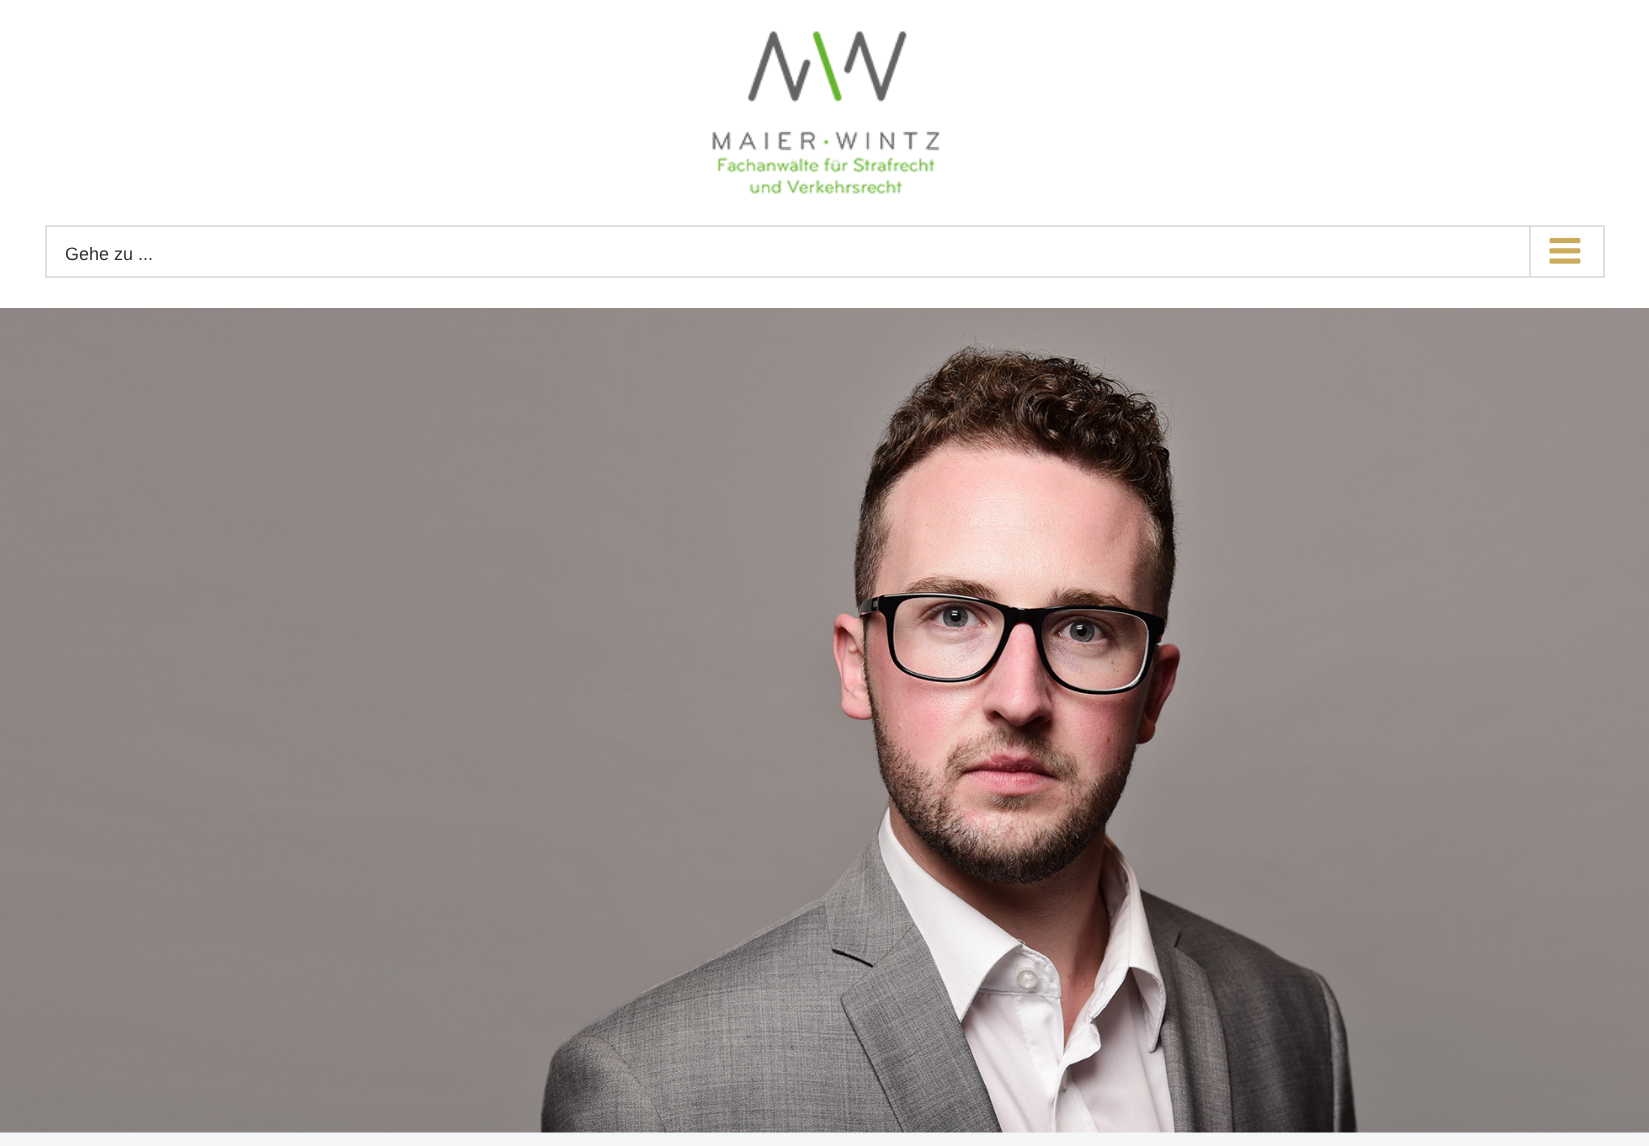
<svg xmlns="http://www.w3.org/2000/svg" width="1649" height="1146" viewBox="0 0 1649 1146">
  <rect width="100%" height="100%" fill="#f4f6f8"/>
  <rect x="0" y="0" width="1649" height="308" fill="#ffffff"/>
  <image x="712" y="31" width="228" height="163" href="img1.png"/>
  <rect x="46" y="226" width="1558" height="51" fill="none" stroke="#e0dede" stroke-width="2"/>
  <text x="65" y="260" font-family="Liberation Sans" font-size="18" fill="#333333">Gehe zu ...</text>
  <rect x="1529" y="227" width="2" height="49" fill="#e0dede"/>
  <image x="1549" y="237" width="32" height="27" href="img2.png"/>
  <image x="0" y="308" width="1649" height="825" href="img3.png"/>
</svg>
